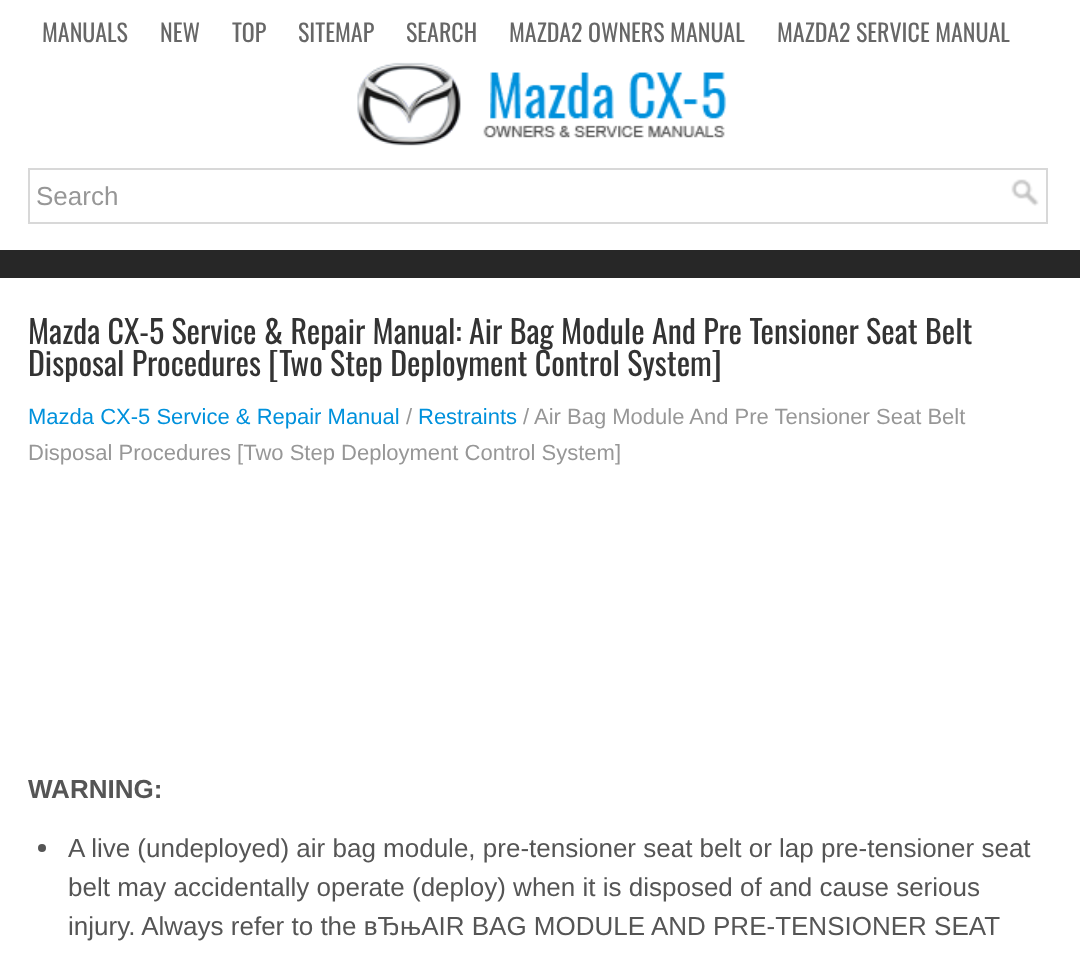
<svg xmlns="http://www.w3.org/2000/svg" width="1080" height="964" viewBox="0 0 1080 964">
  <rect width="100%" height="100%" fill="#ffffff"/>
  <rect x="0" y="250" width="1080" height="28" fill="#272727"/>
  <text x="42" y="42" font-family="Oswald" font-size="24" fill="#676767">MANUALS</text>
  <text x="160" y="42" font-family="Oswald" font-size="24" fill="#676767">NEW</text>
  <text x="232" y="42" font-family="Oswald" font-size="24" fill="#676767">TOP</text>
  <text x="298" y="42" font-family="Oswald" font-size="24" fill="#676767">SITEMAP</text>
  <text x="406" y="42" font-family="Oswald" font-size="24" fill="#676767">SEARCH</text>
  <text x="509" y="42" font-family="Oswald" font-size="24" fill="#676767">MAZDA2 OWNERS MANUAL</text>
  <text x="777" y="42" font-family="Oswald" font-size="24" fill="#676767">MAZDA2 SERVICE MANUAL</text>
  <image x="357" y="62" width="370" height="84" href="img1.png"/>
  <rect x="29" y="169" width="1018" height="54" fill="none" stroke="#d8d8d8" stroke-width="2"/>
  <text x="36" y="205" font-family="Liberation Sans" font-size="26" fill="#979797">Search</text>
  <image x="1011" y="179" width="28" height="27" href="img2.png"/>
  <text x="28" y="344" font-family="Oswald" font-size="32" fill="#333333">Mazda CX-5 Service &amp; Repair Manual: Air Bag Module And Pre Tensioner Seat Belt</text>
  <text x="28" y="376" font-family="Oswald" font-size="32" fill="#333333">Disposal Procedures [Two Step Deployment Control System]</text>
  <text x="28" y="424" font-family="Liberation Sans" font-size="22" fill="#0091dc">Mazda CX-5 Service &amp; Repair Manual</text>
  <text x="406" y="424" font-family="Liberation Sans" font-size="22" fill="#979797">/</text>
  <text x="418" y="424" font-family="Liberation Sans" font-size="22" fill="#0091dc">Restraints</text>
  <text x="523" y="424" font-family="Liberation Sans" font-size="22" fill="#979797">/</text>
  <text x="534" y="424" font-family="Liberation Sans" font-size="22" fill="#979797">Air Bag Module And Pre Tensioner Seat Belt</text>
  <text x="28" y="460" font-family="Liberation Sans" font-size="22" fill="#979797">Disposal Procedures [Two Step Deployment Control System]</text>
  <text x="28" y="798" font-family="Liberation Sans" font-size="26" font-weight="bold" fill="#555555">WARNING:</text>
  <circle cx="42" cy="848" r="4" fill="#555555"/>
  <text x="68" y="857" font-family="Liberation Sans" font-size="26" fill="#555555">A live (undeployed) air bag module, pre-tensioner seat belt or lap pre-tensioner seat</text>
  <text x="68" y="896" font-family="Liberation Sans" font-size="26" fill="#555555">belt may accidentally operate (deploy) when it is disposed of and cause serious</text>
  <text x="68" y="935" font-family="Liberation Sans" font-size="26" fill="#555555">injury. Always refer to the вЂњAIR BAG MODULE AND PRE-TENSIONER SEAT</text>
</svg>
